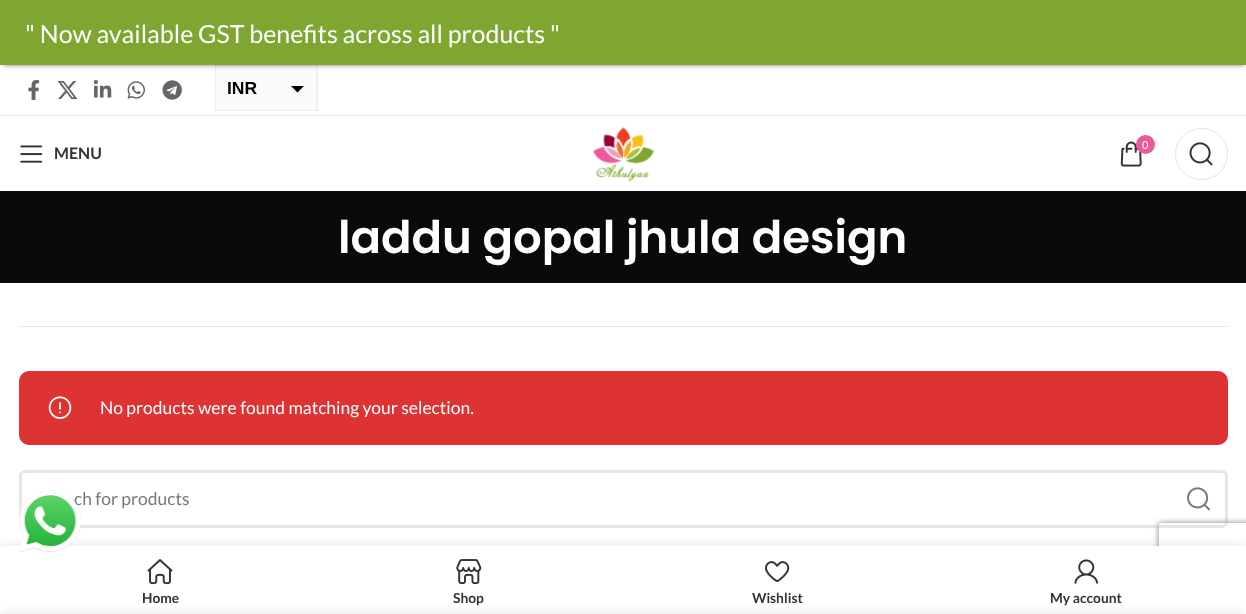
<svg xmlns="http://www.w3.org/2000/svg" width="1246" height="614" viewBox="0 0 1246 614">
  <defs>
    <filter id="blur1" x="-50%" y="-200%" width="200%" height="500%"><feGaussianBlur stdDeviation="2.5"/></filter>
    <filter id="blur2" x="-50%" y="-200%" width="200%" height="500%"><feGaussianBlur stdDeviation="5.5"/></filter>
    <clipPath id="clip1"><path d="M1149 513H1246V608H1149ZM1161.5 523H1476.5C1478 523 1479 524 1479 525.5V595.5C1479 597 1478 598 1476.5 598H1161.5C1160 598 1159 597 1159 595.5V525.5C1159 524 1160 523 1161.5 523Z" clip-rule="evenodd"/></clipPath>
    <filter id="blur3" x="-50%" y="-200%" width="200%" height="500%"><feGaussianBlur stdDeviation="3"/></filter>
  </defs>
  <rect width="100%" height="100%" fill="#ffffff"/>
  <rect x="215" y="65" width="103" height="46" fill="#eeeeee"/>
  <rect x="216" y="66" width="100" height="44" fill="#fafafa"/>
  <rect x="3" y="5" width="1241" height="60" fill="#000000" fill-opacity="0.5" filter="url(#blur1)"/>
  <rect x="0" y="0" width="1246" height="65" fill="#7ea630"/>
  <text x="25" y="43" font-family="Lato" font-size="25" fill="#ffffff">" Now available GST benefits across all products "</text>
  <rect x="0" y="115" width="1246" height="1" fill="#e6e6e4"/>
  <image x="28" y="80" width="12" height="20" href="img1.png"/>
  <image x="57" y="80" width="21" height="20" href="img2.png"/>
  <image x="93" y="80" width="19" height="18" href="img3.png"/>
  <image x="127" y="81" width="18" height="18" href="img4.png"/>
  <image x="162" y="80" width="20" height="20" href="img5.png"/>
  <text x="227" y="94" font-family="Liberation Sans" font-size="17.5" font-weight="bold" fill="#000000">INR</text>
  <path d="M291 86H304L297.5 92.5Z" fill="#000000"/>
  <image x="593" y="127" width="62" height="55" href="img6.png"/>
  <image x="1120" y="141" width="22" height="26" href="img7.png"/>
  <circle cx="1145.5" cy="144.5" r="9.5" fill="#eb5a9a"/>
  <text x="1142" y="149" font-family="Lato" font-size="11" fill="#ffffff">0</text>
  <rect x="1175.5" y="128.5" width="52" height="51" rx="25.5" fill="none" stroke="#e4e4e4"/>
  <image x="1189" y="142" width="24" height="24" href="img8.png"/>
  <image x="20" y="145" width="23" height="18" href="img9.png"/>
  <text x="54" y="159" font-family="Lato" font-size="16" font-weight="bold" fill="#333333">MENU</text>
  <rect x="0" y="191" width="1246" height="92" fill="#0a0a0a"/>
  <text x="338" y="253" font-family="Poppins" font-size="45" font-weight="600" fill="#ffffff">laddu gopal jhula design</text>
  <rect x="19" y="326" width="1209" height="1" fill="#e4e4e4"/>
  <rect x="19" y="371" width="1209" height="74" rx="10" fill="#dd3333"/>
  <image x="48" y="396" width="24" height="23" href="img10.png"/>
  <text x="100" y="414" font-family="Lato" font-size="17.5" fill="#ffffff">No products were found matching your selection.</text>
  <rect x="20.5" y="471.5" width="1206" height="55" rx="4.5" fill="none" stroke="#e6e6e6" stroke-width="3"/>
  <text x="74" y="505" font-family="Lato" font-size="17.5" fill="#777777">ch for products</text>
  <image x="1187" y="487" width="24" height="24" href="img11.png"/>
  <rect x="0" y="546" width="1246" height="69" fill="#000000" fill-opacity="0.12" filter="url(#blur2)"/>
  <g clip-path="url(#clip1)">
    <rect x="1159" y="523" width="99" height="75" rx="2.5" fill="#808080" filter="url(#blur3)"/>
  </g>
  <rect x="0" y="546" width="1246" height="68" fill="#ffffff"/>
  <image x="19" y="490" width="63" height="62" href="img12.png"/>
  <image x="147" y="559" width="26" height="26" href="img13.png"/>
  <text x="142" y="603" font-family="Lato" font-size="13.75" font-weight="bold" fill="#333333">Home</text>
  <image x="456" y="559" width="26" height="26" href="img14.png"/>
  <text x="453" y="603" font-family="Lato" font-size="13.75" font-weight="bold" fill="#333333">Shop</text>
  <image x="765" y="561" width="25" height="21" href="img15.png"/>
  <text x="752" y="603" font-family="Lato" font-size="13.75" font-weight="bold" fill="#333333">Wishlist</text>
  <image x="1074" y="559" width="24" height="25" href="img16.png"/>
  <text x="1050" y="603" font-family="Lato" font-size="13.75" font-weight="bold" fill="#333333">My account</text>
  <rect x="0" y="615" width="1246" height="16" fill="#000000" fill-opacity="0.14" filter="url(#blur2)"/>
</svg>
